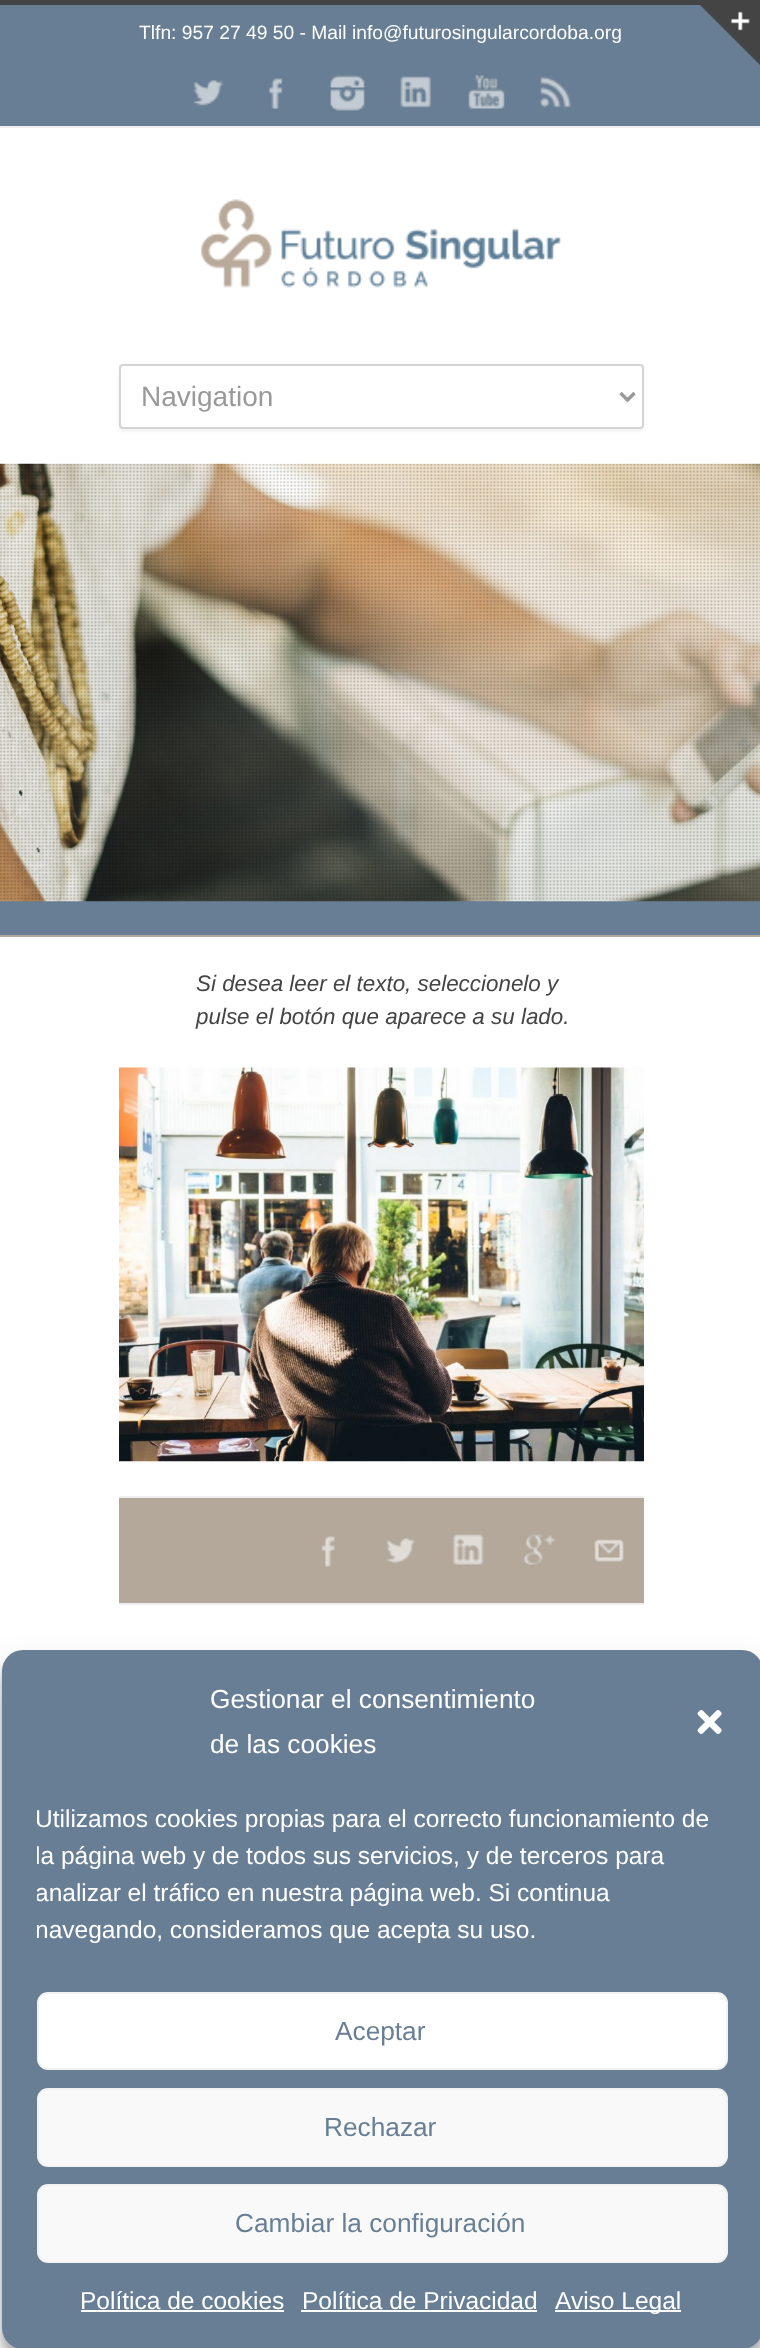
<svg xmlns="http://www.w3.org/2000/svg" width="760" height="2348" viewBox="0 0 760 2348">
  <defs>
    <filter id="blur1" x="-50%" y="-200%" width="200%" height="500%"><feGaussianBlur stdDeviation="2"/></filter>
    <filter id="blur2" x="-50%" y="-200%" width="200%" height="500%"><feGaussianBlur stdDeviation="5"/></filter>
    <filter id="blur3" x="-50%" y="-200%" width="200%" height="500%"><feGaussianBlur stdDeviation="17.5"/></filter>
    <clipPath id="clip1"><rect x="37" y="1801" width="691" height="156"/></clipPath>
  </defs>
  <rect width="100%" height="100%" fill="#ffffff"/>
  <rect x="0" y="0" width="700" height="5" fill="#444444"/>
  <rect x="0" y="5" width="760" height="121" fill="#677e94"/>
  <path d="M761-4V66L691-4Z" fill="#444444"/>
  <image x="731" y="11" width="19" height="20" href="img1.png"/>
  <rect x="0" y="126" width="760" height="2" fill="#efefef"/>
  <text x="139" y="39" font-family="Liberation Sans" font-size="19.25" fill="#ffffff">Tlfn: 957 27 49 50 - Mail info@futurosingularcordoba.org</text>
  <image x="192" y="80" width="32" height="26" href="img2.png"/>
  <image x="269" y="78" width="14" height="31" href="img3.png"/>
  <image x="330" y="75" width="35" height="36" href="img4.png"/>
  <image x="400" y="76" width="31" height="32" href="img5.png"/>
  <image x="468" y="75" width="37" height="34" href="img6.png"/>
  <image x="540" y="76" width="31" height="32" href="img7.png"/>
  <image x="200" y="199" width="361" height="89" href="img8.png"/>
  <rect x="119" y="366" width="525" height="65" rx="4" fill="#b4b4b4" fill-opacity="0.2" filter="url(#blur1)"/>
  <rect x="120" y="365" width="523" height="63" rx="3" fill="#ffffff" stroke="#d4d4d4" stroke-width="2"/>
  <path d="M620.5 393L627.5 400L634.5 393" fill="none" stroke="#999999" stroke-width="3.5"/>
  <text x="141" y="406" font-family="Liberation Sans" font-size="28" fill="#999999">Navigation</text>
  <rect x="0" y="901" width="760" height="34" fill="#677e94"/>
  <image x="0" y="463" width="760" height="439" href="img9.png"/>
  <image x="0" y="464" width="760" height="436" href="img10.png"/>
  <rect x="0" y="935" width="760" height="2" fill="#b3a899"/>
  <text x="196" y="991" font-family="Liberation Sans" font-size="22.4" font-style="italic" fill="#444444">Si desea leer el texto, seleccionelo y</text>
  <text x="196" y="1024" font-family="Liberation Sans" font-size="22.4" font-style="italic" fill="#444444">pulse el botón que aparece a su lado.</text>
  <image x="119" y="1067" width="525" height="395" href="img11.png"/>
  <rect x="119" y="1498" width="525" height="105" fill="#b3a899"/>
  <rect x="119" y="1496" width="525" height="2" fill="#efefef"/>
  <rect x="119" y="1603" width="525" height="2" fill="#efefef"/>
  <image x="321" y="1536" width="14" height="31" href="img12.png"/>
  <image x="386" y="1538" width="30" height="26" href="img13.png"/>
  <image x="453" y="1534" width="31" height="31" href="img14.png"/>
  <image x="523" y="1534" width="32" height="31" href="img15.png"/>
  <image x="594" y="1539" width="30" height="23" href="img16.png"/>
  <rect x="2" y="1661" width="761" height="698" rx="21" fill="#000000" fill-opacity="0.23" filter="url(#blur2)"/>
  <rect x="2" y="1668" width="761" height="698" rx="21" fill="#000000" fill-opacity="0.19" filter="url(#blur3)"/>
  <rect x="2" y="1650" width="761" height="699" rx="21" fill="#677e94"/>
  <text x="210" y="1708" font-family="Liberation Sans" font-size="26.25" fill="#ffffff">Gestionar el consentimiento</text>
  <text x="210" y="1753" font-family="Liberation Sans" font-size="26.25" fill="#ffffff">de las cookies</text>
  <image x="697" y="1710" width="25" height="24" href="img17.png"/>
  <g clip-path="url(#clip1)">
    <text x="35" y="1827" font-family="Liberation Sans" font-size="24.5" fill="#ffffff">Utilizamos cookies propias para el correcto funcionamiento de</text>
    <text x="35" y="1864" font-family="Liberation Sans" font-size="24.5" fill="#ffffff">la página web y de todos sus servicios, y de terceros para</text>
    <text x="35" y="1901" font-family="Liberation Sans" font-size="24.5" fill="#ffffff">analizar el tráfico en nuestra página web. Si continua</text>
    <text x="35" y="1938" font-family="Liberation Sans" font-size="24.5" fill="#ffffff">navegando, consideramos que acepta su uso.</text>
  </g>
  <rect x="38" y="1993" width="689" height="76" rx="10" fill="#ffffff" stroke="#f2f2f2" stroke-width="2"/>
  <text x="335" y="2040" font-family="Liberation Sans" font-size="26.25" fill="#677e94">Aceptar</text>
  <rect x="38" y="2089" width="689" height="77" rx="10" fill="#f9f9f9" stroke="#f2f2f2" stroke-width="2"/>
  <text x="324" y="2136" font-family="Liberation Sans" font-size="26.25" fill="#677e94">Rechazar</text>
  <rect x="38" y="2185" width="689" height="77" rx="10" fill="#f9f9f9" stroke="#f2f2f2" stroke-width="2"/>
  <text x="235" y="2232" font-family="Liberation Sans" font-size="26.25" fill="#677e94">Cambiar la configuración</text>
  <text x="80" y="2309" font-family="Liberation Sans" font-size="24.5" fill="#ffffff">Política de cookies</text>
  <rect x="81" y="2310" width="203" height="2" fill="#ffffff"/>
  <text x="302" y="2309" font-family="Liberation Sans" font-size="24.5" fill="#ffffff">Política de Privacidad</text>
  <rect x="301" y="2310" width="236" height="2" fill="#ffffff"/>
  <rect x="555" y="2310" width="126" height="2" fill="#ffffff"/>
  <text x="555" y="2309" font-family="Liberation Sans" font-size="24.5" fill="#ffffff">Aviso Legal</text>
</svg>
